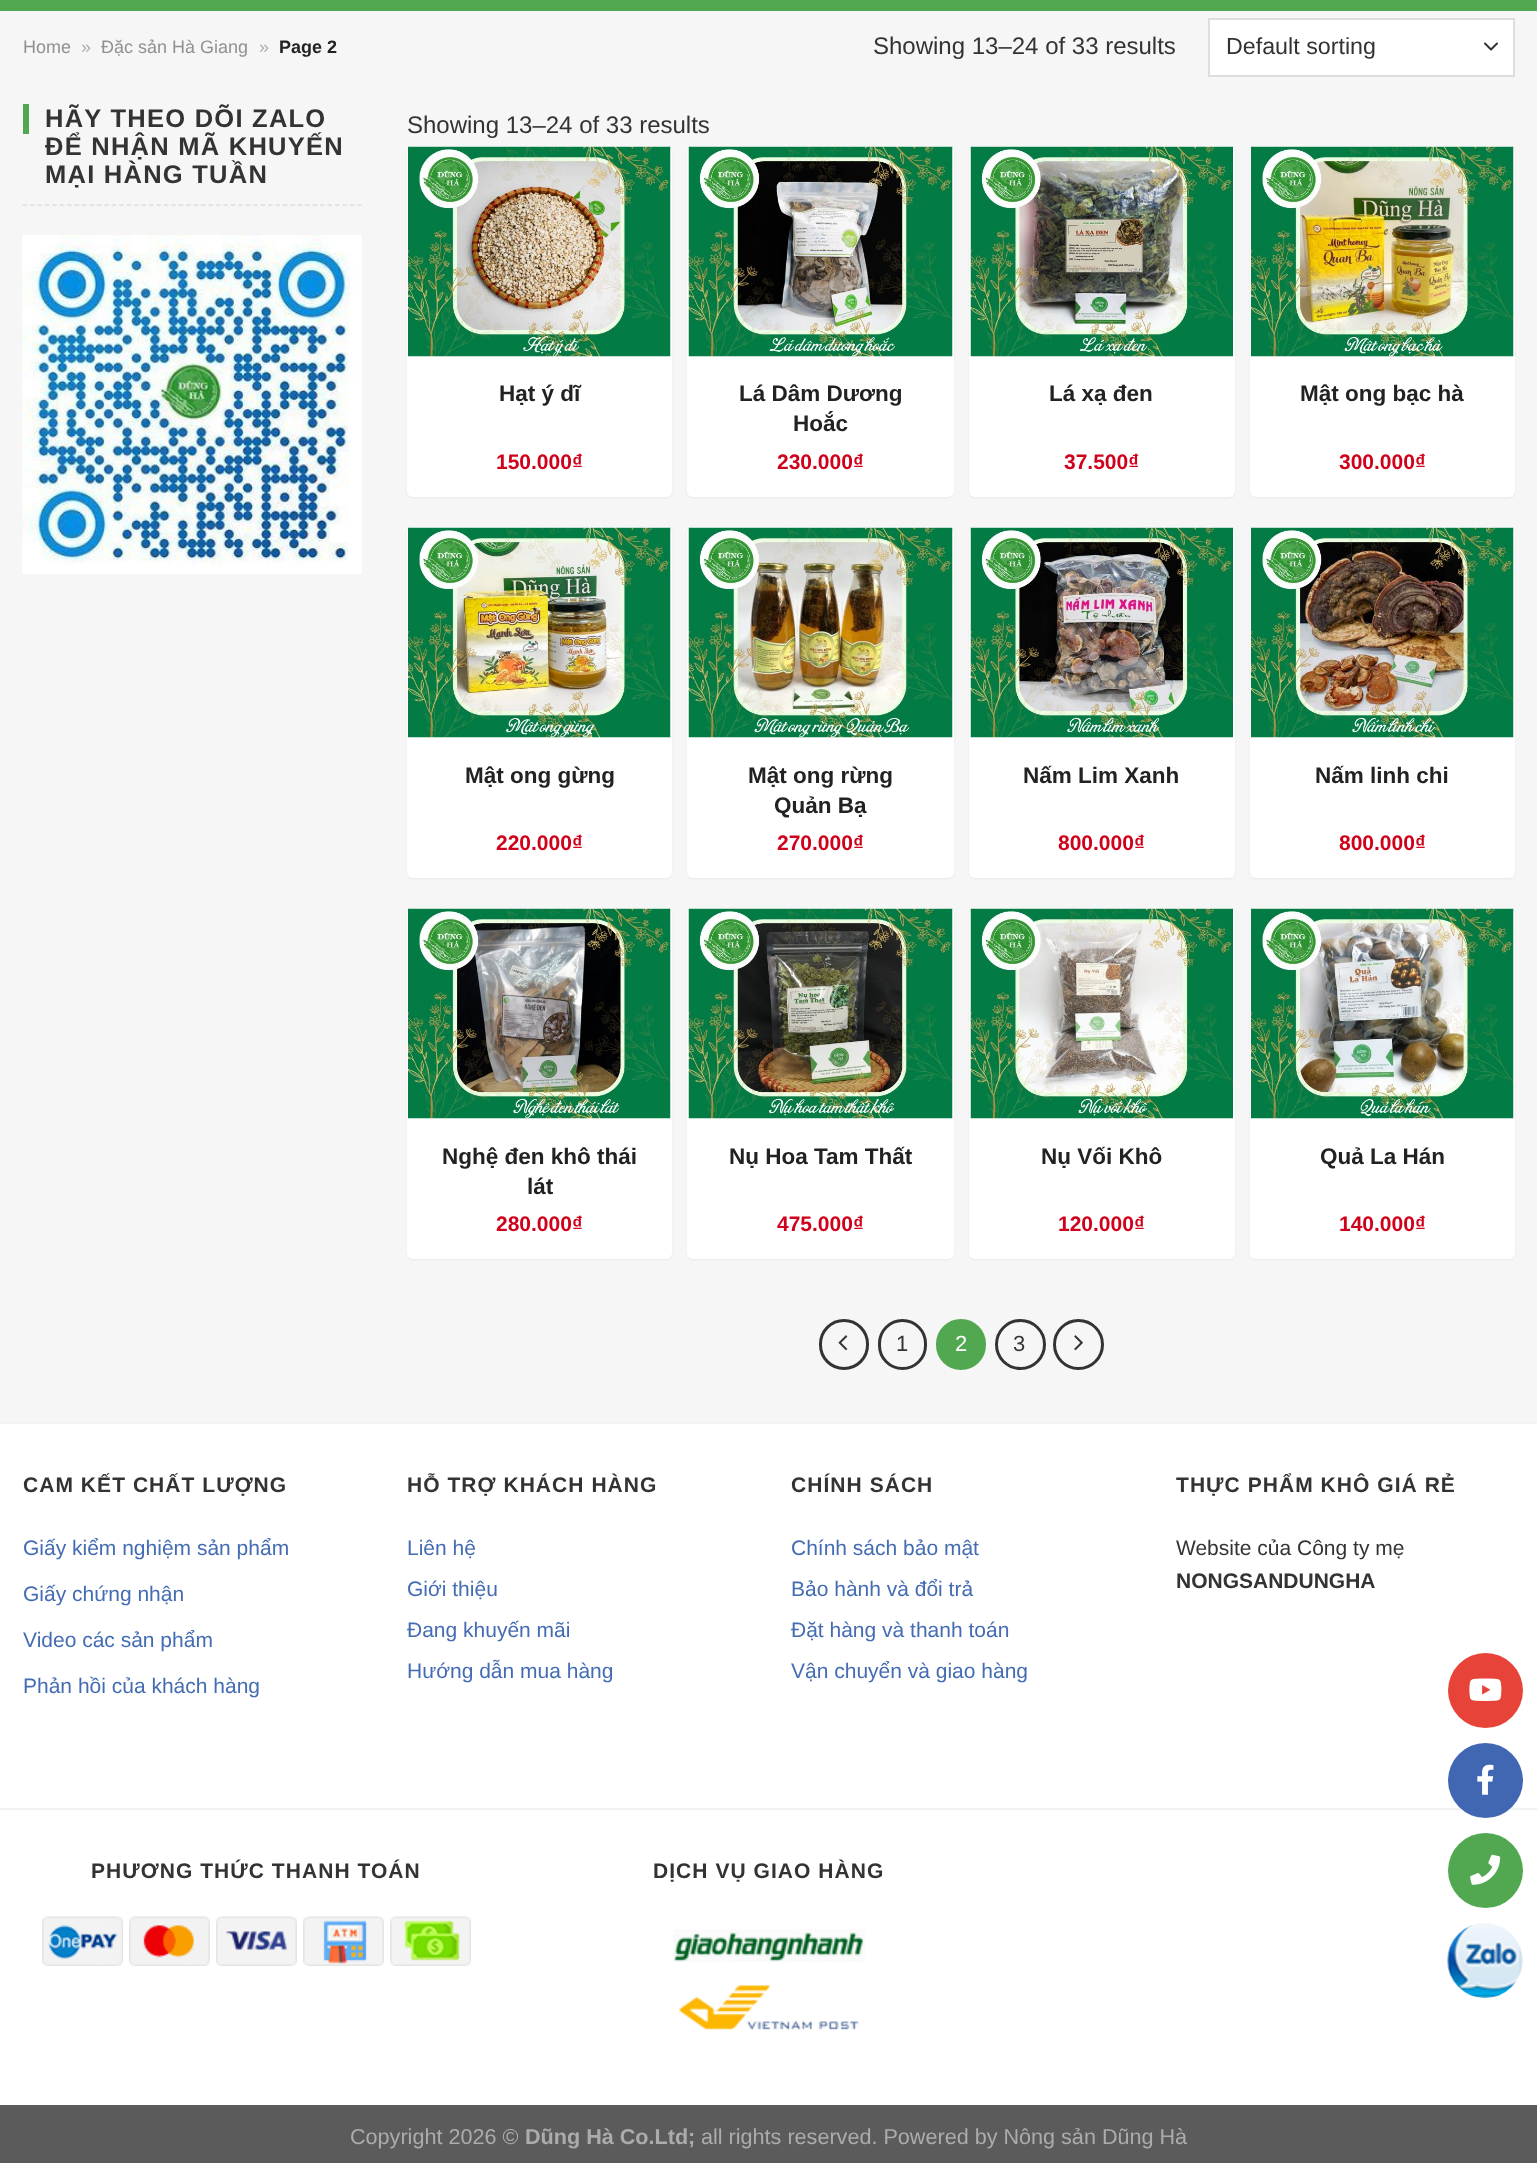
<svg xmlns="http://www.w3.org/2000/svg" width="1537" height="2163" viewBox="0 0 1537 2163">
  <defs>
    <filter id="blur1" x="-50%" y="-200%" width="200%" height="500%"><feGaussianBlur stdDeviation="1"/></filter>
  </defs>
  <rect width="100%" height="100%" fill="#f6f6f6"/>
  <rect x="0" y="0" width="1537" height="11" fill="#52a851"/>
  <text x="23" y="53" font-family="Liberation Sans" font-size="18" fill="#919191">Home</text>
  <text x="81" y="53" font-family="Liberation Sans" font-size="18" fill="#acacac">»</text>
  <text x="101" y="53" font-family="Liberation Sans" font-size="18" fill="#919191">Đặc sản Hà Giang</text>
  <text x="259" y="53" font-family="Liberation Sans" font-size="18" fill="#acacac">»</text>
  <text x="279" y="53" font-family="Liberation Sans" font-size="18" font-weight="bold" fill="#222222">Page 2</text>
  <text x="873" y="54" font-family="Liberation Sans" font-size="24" fill="#333333">Showing 13–24 of 33 results</text>
  <rect x="1210" y="20" width="303" height="55" fill="#ffffff"/>
  <path d="M1485 43.5L1491 49.5L1497 43.5" fill="none" stroke="#333333" stroke-width="2" stroke-linecap="round" stroke-linejoin="round"/>
  <rect x="1209" y="19" width="305" height="57" fill="none" stroke="#dddddd" stroke-width="2"/>
  <text x="1226" y="54" font-family="Liberation Sans" font-size="23.25" fill="#333333">Default sorting</text>
  <path d="M22.5 205H361.5" fill="none" stroke="#dddddd" stroke-width="1.5" stroke-dasharray="4.5 2.94"/>
  <rect x="23" y="104" width="6" height="30" fill="#52a851"/>
  <text x="45" y="127" font-family="Liberation Sans" font-size="25.5" font-weight="bold" letter-spacing="1.25" fill="#333333">HÃY THEO DÕI ZALO</text>
  <text x="45" y="155" font-family="Liberation Sans" font-size="25.5" font-weight="bold" letter-spacing="1.25" fill="#333333">ĐỂ NHẬN MÃ KHUYẾN</text>
  <text x="45" y="183" font-family="Liberation Sans" font-size="25.5" font-weight="bold" letter-spacing="1.25" fill="#333333">MẠI HÀNG TUẦN</text>
  <image x="22" y="235" width="340" height="339" href="img1.png"/>
  <text x="407" y="133" font-family="Liberation Sans" font-size="24" fill="#333333">Showing 13–24 of 33 results</text>
  <rect x="407" y="147" width="265" height="351" rx="6" fill="#000000" fill-opacity="0.05" filter="url(#blur1)"/>
  <rect x="407" y="146" width="265" height="351" rx="6" fill="#ffffff"/>
  <image x="408" y="146" width="263" height="211" href="img2.png"/>
  <text x="499" y="401" font-family="Liberation Sans" font-size="22.5" font-weight="bold" fill="#222222">Hạt ý dĩ</text>
  <text x="496" y="469" font-family="Liberation Sans" font-size="21" font-weight="bold" fill="#d0021b">150.000₫</text>
  <rect x="687" y="147" width="267" height="351" rx="6" fill="#000000" fill-opacity="0.05" filter="url(#blur1)"/>
  <rect x="687" y="146" width="267" height="351" rx="6" fill="#ffffff"/>
  <image x="688" y="146" width="265" height="211" href="img3.png"/>
  <text x="739" y="401" font-family="Liberation Sans" font-size="22.5" font-weight="bold" fill="#222222">Lá Dâm Dương</text>
  <text x="793" y="431" font-family="Liberation Sans" font-size="22.5" font-weight="bold" fill="#222222">Hoắc</text>
  <text x="777" y="469" font-family="Liberation Sans" font-size="21" font-weight="bold" fill="#d0021b">230.000₫</text>
  <rect x="969" y="147" width="266" height="351" rx="6" fill="#000000" fill-opacity="0.05" filter="url(#blur1)"/>
  <rect x="969" y="146" width="266" height="351" rx="6" fill="#ffffff"/>
  <image x="970" y="146" width="263" height="211" href="img4.png"/>
  <text x="1049" y="401" font-family="Liberation Sans" font-size="22.5" font-weight="bold" fill="#222222">Lá xạ đen</text>
  <text x="1064" y="469" font-family="Liberation Sans" font-size="21" font-weight="bold" fill="#d0021b">37.500₫</text>
  <rect x="1250" y="147" width="265" height="351" rx="6" fill="#000000" fill-opacity="0.05" filter="url(#blur1)"/>
  <rect x="1250" y="146" width="265" height="351" rx="6" fill="#ffffff"/>
  <image x="1251" y="146" width="263" height="211" href="img5.png"/>
  <text x="1300" y="401" font-family="Liberation Sans" font-size="22.5" font-weight="bold" fill="#222222">Mật ong bạc hà</text>
  <text x="1339" y="469" font-family="Liberation Sans" font-size="21" font-weight="bold" fill="#d0021b">300.000₫</text>
  <rect x="407" y="528" width="265" height="351" rx="6" fill="#000000" fill-opacity="0.05" filter="url(#blur1)"/>
  <rect x="407" y="527" width="265" height="351" rx="6" fill="#ffffff"/>
  <image x="408" y="527" width="263" height="211" href="img6.png"/>
  <text x="465" y="783" font-family="Liberation Sans" font-size="22.5" font-weight="bold" fill="#222222">Mật ong gừng</text>
  <text x="496" y="850" font-family="Liberation Sans" font-size="21" font-weight="bold" fill="#d0021b">220.000₫</text>
  <rect x="687" y="528" width="267" height="351" rx="6" fill="#000000" fill-opacity="0.05" filter="url(#blur1)"/>
  <rect x="687" y="527" width="267" height="351" rx="6" fill="#ffffff"/>
  <image x="688" y="527" width="265" height="211" href="img7.png"/>
  <text x="748" y="783" font-family="Liberation Sans" font-size="22.5" font-weight="bold" fill="#222222">Mật ong rừng</text>
  <text x="774" y="813" font-family="Liberation Sans" font-size="22.5" font-weight="bold" fill="#222222">Quản Bạ</text>
  <text x="777" y="850" font-family="Liberation Sans" font-size="21" font-weight="bold" fill="#d0021b">270.000₫</text>
  <rect x="969" y="528" width="266" height="351" rx="6" fill="#000000" fill-opacity="0.05" filter="url(#blur1)"/>
  <rect x="969" y="527" width="266" height="351" rx="6" fill="#ffffff"/>
  <image x="970" y="527" width="263" height="211" href="img8.png"/>
  <text x="1023" y="783" font-family="Liberation Sans" font-size="22.5" font-weight="bold" fill="#222222">Nấm Lim Xanh</text>
  <text x="1058" y="850" font-family="Liberation Sans" font-size="21" font-weight="bold" fill="#d0021b">800.000₫</text>
  <rect x="1250" y="528" width="265" height="351" rx="6" fill="#000000" fill-opacity="0.05" filter="url(#blur1)"/>
  <rect x="1250" y="527" width="265" height="351" rx="6" fill="#ffffff"/>
  <image x="1251" y="527" width="263" height="211" href="img9.png"/>
  <text x="1315" y="783" font-family="Liberation Sans" font-size="22.5" font-weight="bold" fill="#222222">Nấm linh chi</text>
  <text x="1339" y="850" font-family="Liberation Sans" font-size="21" font-weight="bold" fill="#d0021b">800.000₫</text>
  <rect x="407" y="909" width="265" height="351" rx="6" fill="#000000" fill-opacity="0.05" filter="url(#blur1)"/>
  <rect x="407" y="908" width="265" height="351" rx="6" fill="#ffffff"/>
  <image x="408" y="908" width="263" height="211" href="img10.png"/>
  <text x="442" y="1164" font-family="Liberation Sans" font-size="22.5" font-weight="bold" fill="#222222">Nghệ đen khô thái</text>
  <text x="527" y="1194" font-family="Liberation Sans" font-size="22.5" font-weight="bold" fill="#222222">lát</text>
  <text x="496" y="1231" font-family="Liberation Sans" font-size="21" font-weight="bold" fill="#d0021b">280.000₫</text>
  <rect x="687" y="909" width="267" height="351" rx="6" fill="#000000" fill-opacity="0.05" filter="url(#blur1)"/>
  <rect x="687" y="908" width="267" height="351" rx="6" fill="#ffffff"/>
  <image x="688" y="908" width="265" height="211" href="img11.png"/>
  <text x="729" y="1164" font-family="Liberation Sans" font-size="22.5" font-weight="bold" fill="#222222">Nụ Hoa Tam Thất</text>
  <text x="777" y="1231" font-family="Liberation Sans" font-size="21" font-weight="bold" fill="#d0021b">475.000₫</text>
  <rect x="969" y="909" width="266" height="351" rx="6" fill="#000000" fill-opacity="0.05" filter="url(#blur1)"/>
  <rect x="969" y="908" width="266" height="351" rx="6" fill="#ffffff"/>
  <image x="970" y="908" width="263" height="211" href="img12.png"/>
  <text x="1041" y="1164" font-family="Liberation Sans" font-size="22.5" font-weight="bold" fill="#222222">Nụ Vối Khô</text>
  <text x="1058" y="1231" font-family="Liberation Sans" font-size="21" font-weight="bold" fill="#d0021b">120.000₫</text>
  <rect x="1250" y="909" width="265" height="351" rx="6" fill="#000000" fill-opacity="0.05" filter="url(#blur1)"/>
  <rect x="1250" y="908" width="265" height="351" rx="6" fill="#ffffff"/>
  <image x="1251" y="908" width="263" height="211" href="img13.png"/>
  <text x="1320" y="1164" font-family="Liberation Sans" font-size="22.5" font-weight="bold" fill="#222222">Quả La Hán</text>
  <text x="1339" y="1231" font-family="Liberation Sans" font-size="21" font-weight="bold" fill="#d0021b">140.000₫</text>
  <rect x="820.5" y="1320.5" width="47" height="48" rx="23.5" fill="none" stroke="#333333" stroke-width="3"/>
  <image x="838" y="1335" width="10" height="16" href="img14.png"/>
  <rect x="879.5" y="1320.5" width="46" height="48" rx="23" fill="none" stroke="#333333" stroke-width="3"/>
  <text x="896" y="1351" font-family="Liberation Sans" font-size="22" fill="#333333">1</text>
  <rect x="937.5" y="1320.5" width="47" height="48" rx="23.5" fill="#52a851" stroke="#52a851" stroke-width="3"/>
  <text x="955" y="1351" font-family="Liberation Sans" font-size="22" fill="#ffffff">2</text>
  <circle cx="1020.5" cy="1344.5" r="24" fill="none" stroke="#333333" stroke-width="3"/>
  <text x="1013" y="1351" font-family="Liberation Sans" font-size="22" fill="#333333">3</text>
  <circle cx="1078.5" cy="1344.5" r="24" fill="none" stroke="#333333" stroke-width="3"/>
  <image x="1074" y="1335" width="9" height="16" href="img15.png"/>
  <rect x="0" y="1424" width="1537" height="384" fill="#ffffff"/>
  <rect x="0" y="1422" width="1537" height="2" fill="#f2f2f2"/>
  <text x="23" y="1492" font-family="Liberation Sans" font-size="21" font-weight="bold" letter-spacing="1.05" fill="#333333">CAM KẾT CHẤT LƯỢNG</text>
  <text x="23" y="1555" font-family="Liberation Sans" font-size="21" fill="#446cb3">Giấy kiểm nghiệm sản phẩm</text>
  <text x="23" y="1601" font-family="Liberation Sans" font-size="21" fill="#446cb3">Giấy chứng nhận</text>
  <text x="23" y="1647" font-family="Liberation Sans" font-size="21" fill="#446cb3">Video các sản phẩm</text>
  <text x="23" y="1693" font-family="Liberation Sans" font-size="21" fill="#446cb3">Phản hồi của khách hàng</text>
  <text x="407" y="1492" font-family="Liberation Sans" font-size="21" font-weight="bold" letter-spacing="1.05" fill="#333333">HỖ TRỢ KHÁCH HÀNG</text>
  <text x="407" y="1555" font-family="Liberation Sans" font-size="21" fill="#446cb3">Liên hệ</text>
  <text x="407" y="1596" font-family="Liberation Sans" font-size="21" fill="#446cb3">Giới thiệu</text>
  <text x="407" y="1637" font-family="Liberation Sans" font-size="21" fill="#446cb3">Đang khuyến mãi</text>
  <text x="407" y="1678" font-family="Liberation Sans" font-size="21" fill="#446cb3">Hướng dẫn mua hàng</text>
  <text x="791" y="1492" font-family="Liberation Sans" font-size="21" font-weight="bold" letter-spacing="1.05" fill="#333333">CHÍNH SÁCH</text>
  <text x="791" y="1555" font-family="Liberation Sans" font-size="21" fill="#446cb3">Chính sách bảo mật</text>
  <text x="791" y="1596" font-family="Liberation Sans" font-size="21" fill="#446cb3">Bảo hành và đổi trả</text>
  <text x="791" y="1637" font-family="Liberation Sans" font-size="21" fill="#446cb3">Đặt hàng và thanh toán</text>
  <text x="791" y="1678" font-family="Liberation Sans" font-size="21" fill="#446cb3">Vận chuyển và giao hàng</text>
  <text x="1176" y="1492" font-family="Liberation Sans" font-size="21" font-weight="bold" letter-spacing="1.05" fill="#333333">THỰC PHẨM KHÔ GIÁ RẺ</text>
  <text x="1176" y="1555" font-family="Liberation Sans" font-size="21" fill="#333333">Website của Công ty mẹ</text>
  <text x="1176" y="1588" font-family="Liberation Sans" font-size="21" font-weight="bold" fill="#333333">NONGSANDUNGHA</text>
  <rect x="0" y="1810" width="1537" height="295" fill="#ffffff"/>
  <rect x="0" y="1808" width="1537" height="2" fill="#f2f2f2"/>
  <text x="91" y="1878" font-family="Liberation Sans" font-size="21" font-weight="bold" letter-spacing="1.05" fill="#333333">PHƯƠNG THỨC THANH TOÁN</text>
  <image x="42" y="1916" width="81" height="50" href="img16.png"/>
  <image x="129" y="1916" width="81" height="50" href="img17.png"/>
  <image x="216" y="1916" width="81" height="50" href="img18.png"/>
  <image x="303" y="1916" width="81" height="50" href="img19.png"/>
  <image x="390" y="1916" width="81" height="50" href="img20.png"/>
  <text x="653" y="1878" font-family="Liberation Sans" font-size="21" font-weight="bold" letter-spacing="1.05" fill="#333333">DỊCH VỤ GIAO HÀNG</text>
  <image x="673" y="1929" width="192" height="33" href="img21.png"/>
  <image x="679" y="1985" width="180" height="45" href="img22.png"/>
  <rect x="0" y="2105" width="1537" height="58" fill="#5b5b5b"/>
  <text x="350" y="2144" font-family="Liberation Sans" font-size="21.6" fill="#acacac">Copyright 2026 ©</text>
  <text x="525" y="2144" font-family="Liberation Sans" font-size="21.6" font-weight="bold" fill="#acacac">Dũng Hà Co.Ltd;</text>
  <text x="701" y="2144" font-family="Liberation Sans" font-size="21.6" fill="#acacac">all rights reserved. Powered by Nông sản Dũng Hà</text>
  <circle cx="1485.5" cy="1690.5" r="37.5" fill="#e74339"/>
  <image x="1469" y="1678" width="33" height="23" href="img23.png"/>
  <circle cx="1485.5" cy="1780.5" r="37.5" fill="#4267b2"/>
  <image x="1477" y="1764" width="17" height="31" href="img24.png"/>
  <circle cx="1485.5" cy="1870.5" r="37.5" fill="#52a851"/>
  <image x="1470" y="1854" width="31" height="31" href="img25.png"/>
  <image x="1447" y="1923" width="76" height="75" href="img26.png"/>
</svg>
